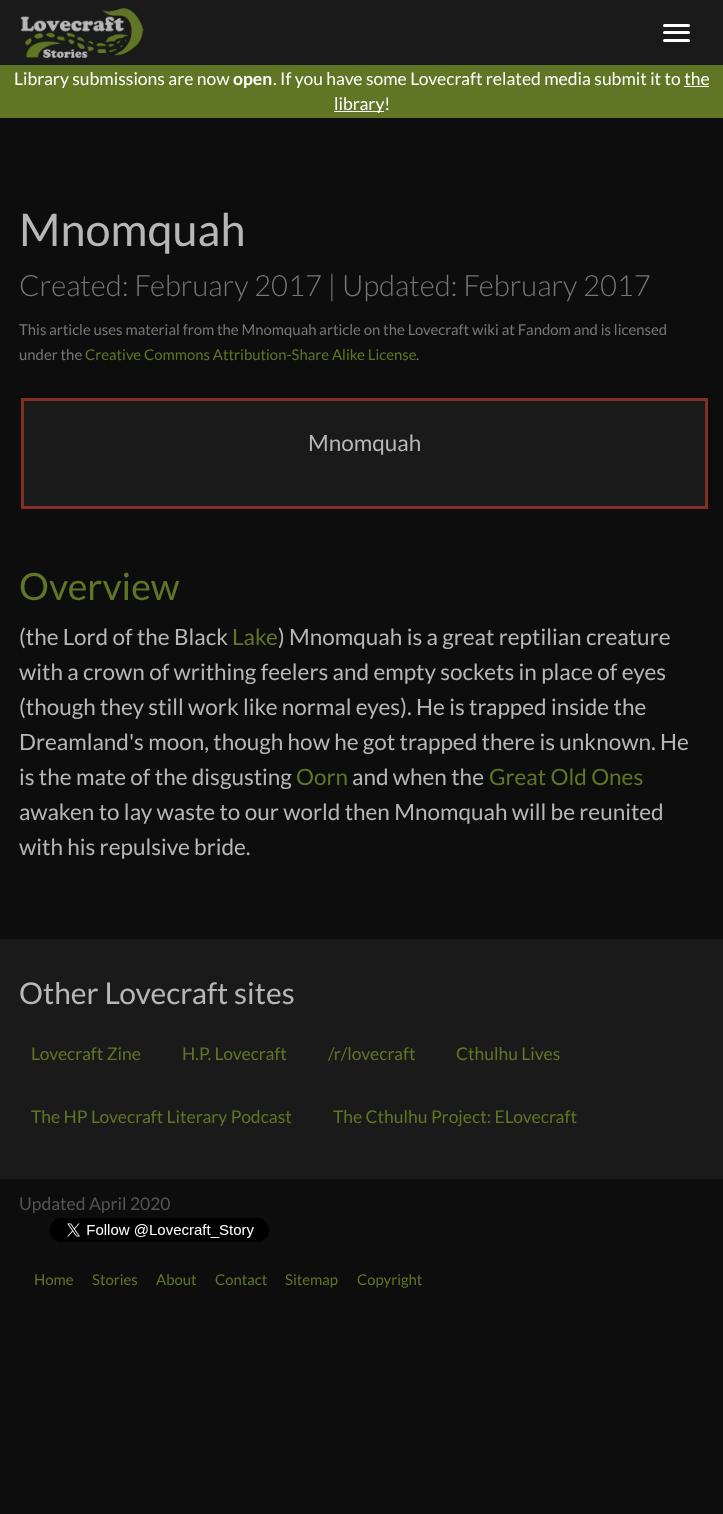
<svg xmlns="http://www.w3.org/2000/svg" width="723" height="1514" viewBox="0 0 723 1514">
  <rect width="100%" height="100%" fill="#0d0d0d"/>
  <rect x="0" y="0" width="723" height="65" fill="#1a1a1a"/>
  <image x="20" y="8" width="124" height="50" href="img1.png"/>
  <rect x="663" y="24" width="27" height="3" rx="1.5" fill="#ffffff"/>
  <rect x="663" y="31" width="27" height="3" rx="1.5" fill="#ffffff"/>
  <rect x="663" y="39" width="27" height="3" rx="1.5" fill="#ffffff"/>
  <rect x="0" y="65" width="723" height="53" fill="#607625"/>
  <text x="14" y="85" font-family="Lato" font-size="17.5" fill="#ffffff">Library submissions are now</text>
  <text x="233" y="85" font-family="Lato" font-size="17.5" font-weight="bold" fill="#ffffff">open</text>
  <text x="273" y="85" font-family="Lato" font-size="17.5" fill="#ffffff">. If you have some Lovecraft related media submit it to the</text>
  <rect x="334" y="111" width="50" height="1" fill="#ffffff"/>
  <text x="334" y="110" font-family="Lato" font-size="17.5" fill="#ffffff">library!</text>
  <rect x="684" y="86" width="25" height="1" fill="#ffffff"/>
  <text x="19" y="246" font-family="Lato" font-size="45" fill="#b7b7b7">Mnomquah</text>
  <text x="19" y="296" font-family="Lato" font-size="29.25" font-weight="300" fill="#777777">Created: February 2017 | Updated: February 2017</text>
  <text x="19" y="335" font-family="Lato" font-size="14.9" fill="#777777">This article uses material from the Mnomquah article on the Lovecraft wiki at Fandom and is licensed</text>
  <text x="19" y="360" font-family="Lato" font-size="14.9" fill="#777777">under the</text>
  <text x="85" y="360" font-family="Lato" font-size="14.9" fill="#607625">Creative Commons Attribution-Share Alike License</text>
  <text x="416" y="360" font-family="Lato" font-size="14.9" fill="#777777">.</text>
  <rect x="22.5" y="399.5" width="684" height="108" fill="#1a1a1a" stroke="#832f24" stroke-width="3"/>
  <text x="308" y="451" font-family="Lato" font-size="22.5" fill="#b7b7b7">Mnomquah</text>
  <text x="19" y="600" font-family="Lato" font-size="37.5" fill="#607625">Overview</text>
  <text x="19" y="645" font-family="Lato" font-size="22.5" fill="#b7b7b7">(the Lord of the Black</text>
  <text x="232" y="645" font-family="Lato" font-size="22.5" fill="#607625">Lake</text>
  <text x="278" y="645" font-family="Lato" font-size="22.5" fill="#b7b7b7">) Mnomquah is a great reptilian creature</text>
  <text x="19" y="680" font-family="Lato" font-size="22.5" fill="#b7b7b7">with a crown of writhing feelers and empty sockets in place of eyes</text>
  <text x="19" y="715" font-family="Lato" font-size="22.5" fill="#b7b7b7">(though they still work like normal eyes). He is trapped inside the</text>
  <text x="19" y="750" font-family="Lato" font-size="22.5" fill="#b7b7b7">Dreamland's moon, though how he got trapped there is unknown. He</text>
  <text x="19" y="785" font-family="Lato" font-size="22.5" fill="#b7b7b7">is the mate of the disgusting</text>
  <text x="296" y="785" font-family="Lato" font-size="22.5" fill="#607625">Oorn</text>
  <text x="352" y="785" font-family="Lato" font-size="22.5" fill="#b7b7b7">and when the</text>
  <text x="489" y="785" font-family="Lato" font-size="22.5" fill="#607625">Great Old Ones</text>
  <text x="19" y="820" font-family="Lato" font-size="22.5" fill="#b7b7b7">awaken to lay waste to our world then Mnomquah will be reunited</text>
  <text x="19" y="855" font-family="Lato" font-size="22.5" fill="#b7b7b7">with his repulsive bride.</text>
  <rect x="0" y="939" width="723" height="240" fill="#1a1a1a"/>
  <text x="19" y="1004" font-family="Lato" font-size="30" fill="#b7b7b7">Other Lovecraft sites</text>
  <text x="31" y="1060" font-family="Lato" font-size="17.5" fill="#607625">Lovecraft Zine</text>
  <text x="182" y="1060" font-family="Lato" font-size="17.5" fill="#607625">H.P. Lovecraft</text>
  <text x="328" y="1060" font-family="Lato" font-size="17.5" fill="#607625">/r/lovecraft</text>
  <text x="456" y="1060" font-family="Lato" font-size="17.5" fill="#607625">Cthulhu Lives</text>
  <text x="31" y="1123" font-family="Lato" font-size="17.5" fill="#607625">The HP Lovecraft Literary Podcast</text>
  <text x="333" y="1123" font-family="Lato" font-size="17.5" fill="#607625">The Cthulhu Project: ELovecraft</text>
  <text x="19" y="1210" font-family="Lato" font-size="17.5" fill="#555555">Updated April 2020</text>
  <image x="50" y="1218" width="219" height="24" href="img2.png"/>
  <text x="34" y="1285" font-family="Lato" font-size="14.9" fill="#607625">Home</text>
  <text x="92" y="1285" font-family="Lato" font-size="14.9" fill="#607625">Stories</text>
  <text x="156" y="1285" font-family="Lato" font-size="14.9" fill="#607625">About</text>
  <text x="215" y="1285" font-family="Lato" font-size="14.9" fill="#607625">Contact</text>
  <text x="285" y="1285" font-family="Lato" font-size="14.9" fill="#607625">Sitemap</text>
  <text x="357" y="1285" font-family="Lato" font-size="14.9" fill="#607625">Copyright</text>
</svg>
